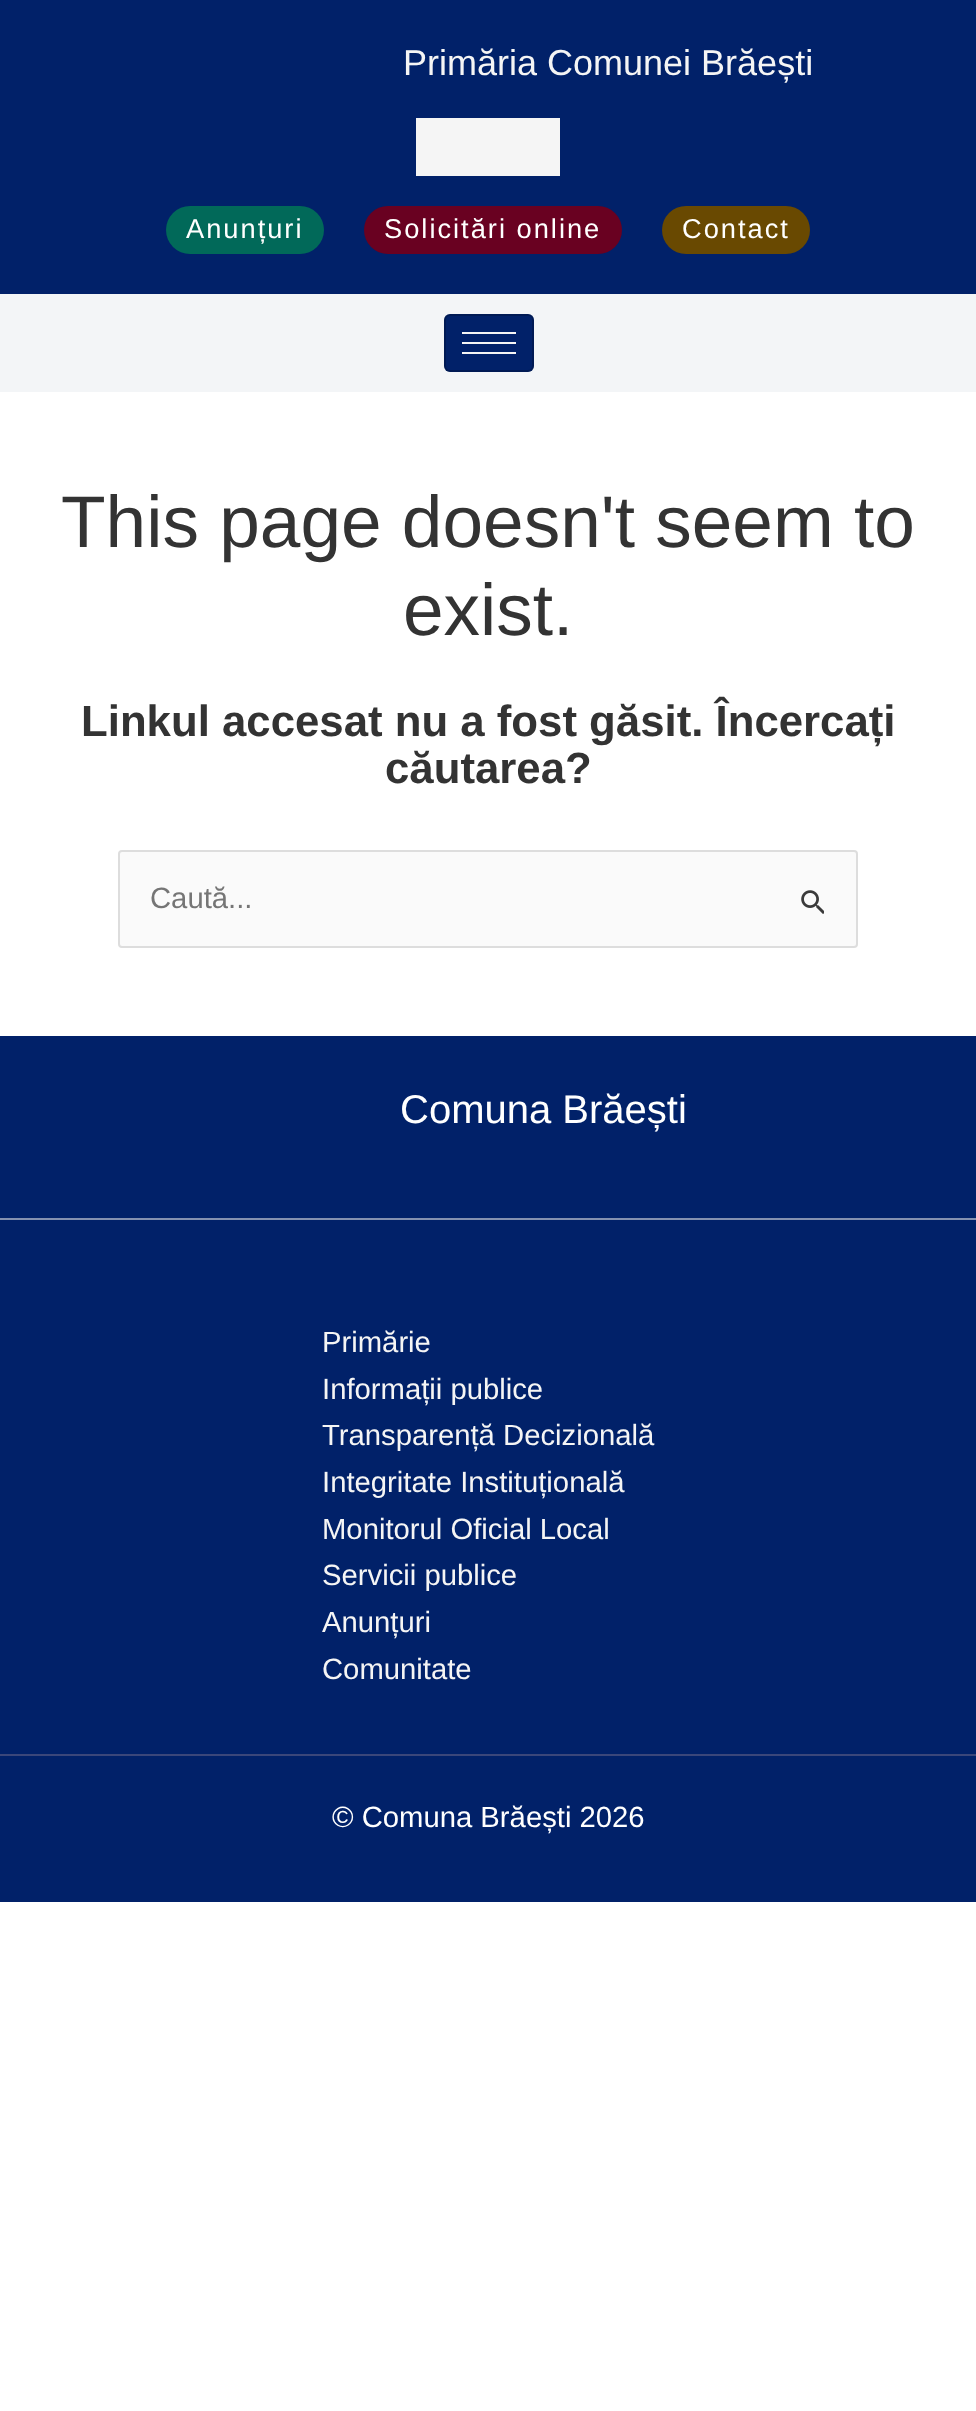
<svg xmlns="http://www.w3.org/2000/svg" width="976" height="2411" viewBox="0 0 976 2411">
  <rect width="100%" height="100%" fill="#ffffff"/>
  <rect x="0" y="0" width="976" height="294" fill="#012169"/>
  <text x="403" y="75" font-family="Liberation Sans" font-size="36" fill="#f5f5f5">Primăria Comunei Brăești</text>
  <rect x="416" y="118" width="144" height="58" fill="#f5f5f5"/>
  <rect x="166" y="206" width="158" height="48" rx="24" fill="#016959"/>
  <text x="186" y="238" font-family="Liberation Sans" font-size="27.25" letter-spacing="2" fill="#ffffff">Anunțuri</text>
  <rect x="364" y="206" width="258" height="48" rx="24" fill="#690121"/>
  <text x="384" y="238" font-family="Liberation Sans" font-size="27.25" letter-spacing="2" fill="#ffffff">Solicitări online</text>
  <rect x="662" y="206" width="148" height="48" rx="24" fill="#694901"/>
  <text x="682" y="238" font-family="Liberation Sans" font-size="27.25" letter-spacing="2" fill="#ffffff">Contact</text>
  <rect x="0" y="294" width="976" height="98" fill="#f3f5f7"/>
  <rect x="444" y="314" width="90" height="58" rx="6" fill="#012169"/>
  <rect x="445" y="315" width="88" height="56" rx="5" fill="none" stroke="#000000" stroke-opacity="0.2" stroke-width="2"/>
  <rect x="462" y="332" width="54" height="2" fill="#f5f5f5"/>
  <rect x="462" y="342" width="54" height="2" fill="#f5f5f5"/>
  <rect x="462" y="352" width="54" height="2" fill="#f5f5f5"/>
  <text x="61" y="547" font-family="Liberation Sans" font-size="73" fill="#333333">This page doesn't seem to</text>
  <text x="403" y="635" font-family="Liberation Sans" font-size="73" fill="#333333">exist.</text>
  <text x="81" y="736" font-family="Liberation Sans" font-size="43.75" font-weight="bold" fill="#333333">Linkul accesat nu a fost găsit. Încercați</text>
  <text x="385" y="783" font-family="Liberation Sans" font-size="43.75" font-weight="bold" fill="#333333">căutarea?</text>
  <rect x="119" y="851" width="738" height="96" rx="3" fill="#fafafa" stroke="#dddddd" stroke-width="2"/>
  <text x="150" y="908" font-family="Liberation Sans" font-size="29.25" fill="#757575">Caută...</text>
  <image x="801" y="890" width="23" height="24" href="img1.png"/>
  <rect x="0" y="1036" width="976" height="866" fill="#012169"/>
  <text x="400" y="1123" font-family="Liberation Sans" font-size="40" fill="#ffffff">Comuna Brăești</text>
  <rect x="0" y="1218" width="976" height="2" fill="#8491b0"/>
  <text x="322" y="1352" font-family="Liberation Sans" font-size="29.25" fill="#f5f5f5">Primărie</text>
  <text x="322" y="1399" font-family="Liberation Sans" font-size="29.25" fill="#f5f5f5">Informații publice</text>
  <text x="322" y="1445" font-family="Liberation Sans" font-size="29.25" fill="#f5f5f5">Transparență Decizională</text>
  <text x="322" y="1492" font-family="Liberation Sans" font-size="29.25" fill="#f5f5f5">Integritate Instituțională</text>
  <text x="322" y="1539" font-family="Liberation Sans" font-size="29.25" fill="#f5f5f5">Monitorul Oficial Local</text>
  <text x="322" y="1585" font-family="Liberation Sans" font-size="29.25" fill="#f5f5f5">Servicii publice</text>
  <text x="322" y="1632" font-family="Liberation Sans" font-size="29.25" fill="#f5f5f5">Anunțuri</text>
  <text x="322" y="1679" font-family="Liberation Sans" font-size="29.25" fill="#f5f5f5">Comunitate</text>
  <rect x="0" y="1754" width="976" height="2" fill="#3b477a"/>
  <text x="332" y="1827" font-family="Liberation Sans" font-size="29.25" fill="#ffffff">© Comuna Brăești 2026</text>
</svg>
